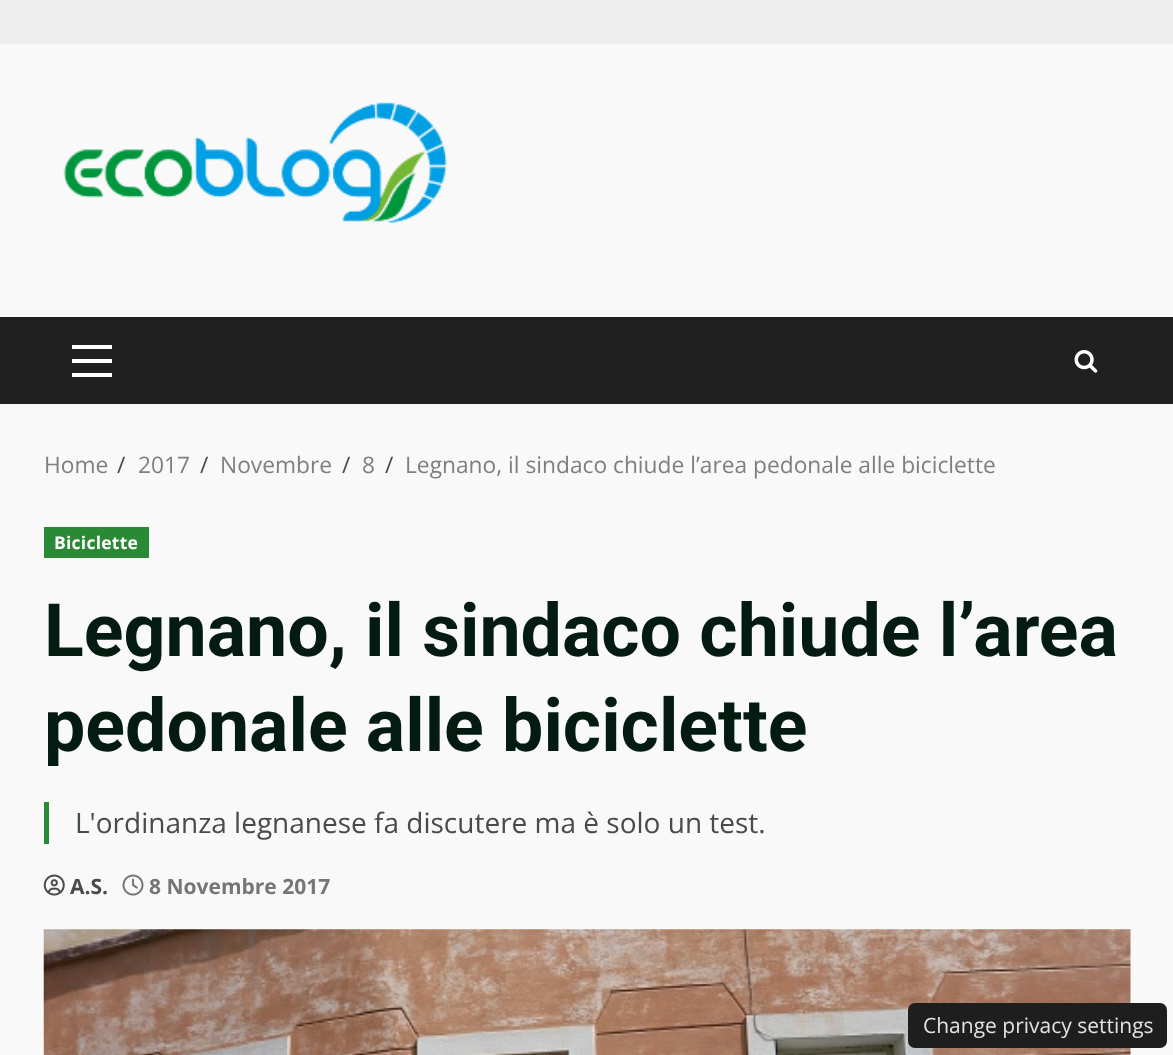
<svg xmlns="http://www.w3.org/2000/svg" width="1173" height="1055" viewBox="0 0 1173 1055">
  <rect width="100%" height="100%" fill="#eeeeee"/>
  <rect x="0" y="44" width="1173" height="1011" fill="#f9f9f9"/>
  <image x="63" y="102" width="384" height="121" href="img1.png"/>
  <rect x="0" y="317" width="1173" height="87" fill="#202020"/>
  <rect x="72" y="359" width="40" height="4" fill="#ffffff"/>
  <rect x="72" y="345" width="40" height="4" fill="#ffffff"/>
  <rect x="72" y="373" width="40" height="4" fill="#ffffff"/>
  <image x="1074" y="350" width="24" height="23" href="img2.png"/>
  <text x="44" y="473" font-family="Open Sans" font-size="22.75" fill="#7f7f7f">Home</text>
  <text x="117" y="473" font-family="Open Sans" font-size="22.75" fill="#4a4a4a">/</text>
  <text x="138" y="473" font-family="Open Sans" font-size="22.75" fill="#7f7f7f">2017</text>
  <text x="200" y="473" font-family="Open Sans" font-size="22.75" fill="#4a4a4a">/</text>
  <text x="220" y="473" font-family="Open Sans" font-size="22.75" fill="#7f7f7f">Novembre</text>
  <text x="342" y="473" font-family="Open Sans" font-size="22.75" fill="#4a4a4a">/</text>
  <text x="362" y="473" font-family="Open Sans" font-size="22.75" fill="#7f7f7f">8</text>
  <text x="385" y="473" font-family="Open Sans" font-size="22.75" fill="#4a4a4a">/</text>
  <text x="405" y="473" font-family="Open Sans" font-size="22.75" fill="#7f7f7f">Legnano, il sindaco chiude l’area pedonale alle biciclette</text>
  <rect x="44" y="527" width="105" height="31" fill="#2a8935"/>
  <text x="54" y="549" font-family="Open Sans" font-size="17.5" font-weight="bold" letter-spacing="0.25" fill="#ffffff">Biciclette</text>
  <text x="44" y="656" font-family="Roboto" font-size="73.5" font-weight="bold" fill="#031b11">Legnano, il sindaco chiude l’area</text>
  <text x="44" y="751" font-family="Roboto" font-size="73.5" font-weight="bold" fill="#031b11">pedonale alle biciclette</text>
  <rect x="44" y="802" width="5" height="42" fill="#2a8935"/>
  <text x="75" y="833" font-family="Open Sans" font-size="28" fill="#4a4a4a">L'ordinanza legnanese fa discutere ma è solo un test.</text>
  <image x="43" y="874" width="22" height="22" href="img3.png"/>
  <text x="70" y="894" font-family="Open Sans" font-size="21" font-weight="bold" fill="#4a4a4a">A.S.</text>
  <image x="122" y="874" width="22" height="22" href="img4.png"/>
  <text x="149" y="894" font-family="Open Sans" font-size="21" font-weight="bold" fill="#767676">8 Novembre 2017</text>
  <image x="43" y="929" width="1088" height="126" href="img5.png"/>
  <rect x="908" y="1003" width="259" height="45" rx="7" fill="#1e1e1e"/>
  <text x="923" y="1033" font-family="Open Sans" font-size="21" fill="#e3e1e1">Change privacy settings</text>
</svg>
